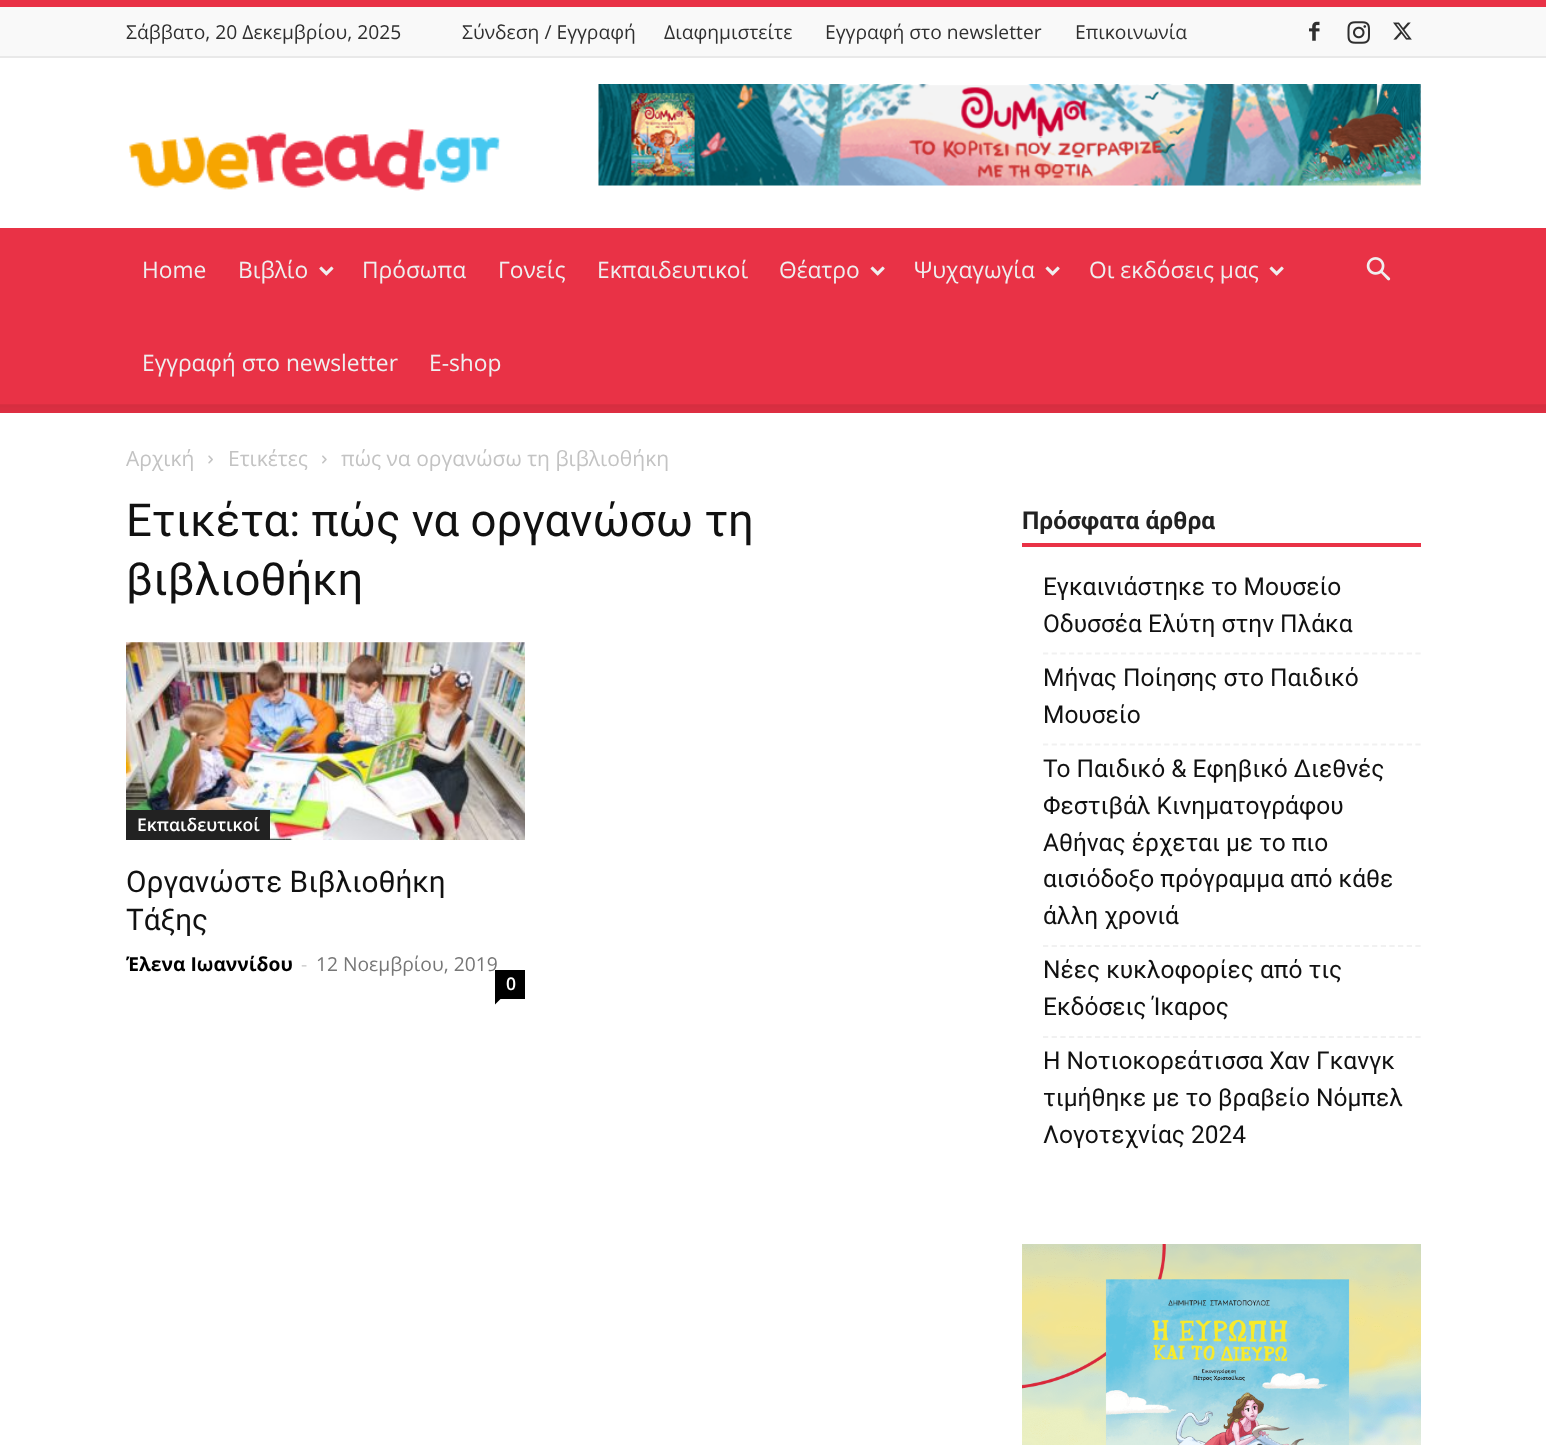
<svg xmlns="http://www.w3.org/2000/svg" width="1546" height="1445" viewBox="0 0 1546 1445">
  <rect width="100%" height="100%" fill="#ffffff"/>
  <rect x="0" y="7" width="1546" height="49" fill="#f9f9f9"/>
  <rect x="0" y="0" width="1546" height="7" fill="#e93246"/>
  <rect x="0" y="56" width="1546" height="2" fill="#e9e9e9"/>
  <text x="126" y="39" font-family="Open Sans" font-size="19.25" fill="#2f2f2f">Σάββατο, 20 Δεκεμβρίου, 2025</text>
  <text x="462" y="39" font-family="Open Sans" font-size="19.25" fill="#2f2f2f">Σύνδεση / Εγγραφή</text>
  <text x="664" y="39" font-family="Open Sans" font-size="19.25" fill="#2f2f2f">Διαφημιστείτε</text>
  <text x="825" y="39" font-family="Open Sans" font-size="19.25" fill="#2f2f2f">Εγγραφή στο newsletter</text>
  <text x="1075" y="39" font-family="Open Sans" font-size="19.25" fill="#2f2f2f">Επικοινωνία</text>
  <image x="1309" y="21" width="11" height="20" href="img1.png"/>
  <image x="1347" y="21" width="23" height="23" href="img2.png"/>
  <image x="1393" y="22" width="19" height="18" href="img3.png"/>
  <image x="129" y="128" width="372" height="63" href="img4.png"/>
  <image x="598" y="84" width="823" height="102" href="img5.png"/>
  <rect x="0" y="228" width="1546" height="185" fill="#e93246"/>
  <text x="142" y="278" font-family="Open Sans" font-size="22.75" fill="#efefef">Home</text>
  <text x="238" y="278" font-family="Open Sans" font-size="22.75" fill="#efefef">Βιβλίο</text>
  <image x="319" y="266" width="15" height="10" href="img6.png"/>
  <text x="362" y="278" font-family="Open Sans" font-size="22.75" fill="#efefef">Πρόσωπα</text>
  <text x="498" y="278" font-family="Open Sans" font-size="22.75" fill="#efefef">Γονείς</text>
  <text x="597" y="278" font-family="Open Sans" font-size="22.75" fill="#efefef">Εκπαιδευτικοί</text>
  <text x="779" y="278" font-family="Open Sans" font-size="22.75" fill="#efefef">Θέατρο</text>
  <image x="870" y="266" width="15" height="10" href="img7.png"/>
  <text x="914" y="278" font-family="Open Sans" font-size="22.75" fill="#efefef">Ψυχαγωγία</text>
  <image x="1045" y="266" width="15" height="10" href="img7.png"/>
  <text x="1089" y="278" font-family="Open Sans" font-size="22.75" fill="#efefef">Οι εκδόσεις μας</text>
  <image x="1269" y="266" width="15" height="10" href="img7.png"/>
  <text x="142" y="371" font-family="Open Sans" font-size="22.75" fill="#efefef">Εγγραφή στο newsletter</text>
  <text x="429" y="371" font-family="Open Sans" font-size="22.75" fill="#efefef">E-shop</text>
  <image x="1366" y="257" width="25" height="24" href="img8.png"/>
  <image x="0" y="404" width="1546" height="9" href="img9.png"/>
  <text x="126" y="466" font-family="Open Sans" font-size="21" fill="#c3c3c3">Αρχική</text>
  <image x="208" y="455" width="5" height="9" href="img10.png"/>
  <text x="228" y="466" font-family="Open Sans" font-size="21" fill="#c3c3c3">Ετικέτες</text>
  <image x="322" y="455" width="5" height="9" href="img11.png"/>
  <text x="341" y="466" font-family="Open Sans" font-size="21" fill="#c3c3c3">πώς να οργανώσω τη βιβλιοθήκη</text>
  <text x="126" y="536" font-family="Roboto" font-size="45.5" fill="#111111">Ετικέτα: πώς να οργανώσω τη</text>
  <text x="126" y="595" font-family="Roboto" font-size="45.5" fill="#111111">βιβλιοθήκη</text>
  <image x="126" y="642" width="399" height="198" href="img12.png"/>
  <rect x="126" y="810" width="144" height="30" fill="#222222"/>
  <text x="137" y="831" font-family="Open Sans" font-size="17.5" font-weight="600" fill="#ffffff">Εκπαιδευτικοί</text>
  <text x="126" y="892" font-family="Roboto" font-size="29.75" fill="#111111">Οργανώστε Βιβλιοθήκη</text>
  <text x="126" y="930" font-family="Roboto" font-size="29.75" fill="#111111">Tάξης</text>
  <text x="126" y="971" font-family="Open Sans" font-size="19.25" font-weight="bold" fill="#000000">Έλενα Ιωαννίδου</text>
  <text x="301" y="971" font-family="Open Sans" font-size="19.25" fill="#cccccc">-</text>
  <text x="316" y="971" font-family="Open Sans" font-size="19.25" fill="#767676">12 Νοεμβρίου, 2019</text>
  <rect x="495" y="970" width="30" height="29" fill="#000000"/>
  <text x="506" y="990" font-family="Open Sans" font-size="17.5" font-weight="600" fill="#ffffff">0</text>
  <path d="M495 999H500.5L495 1004.5Z" fill="#000000"/>
  <rect x="1022" y="543" width="399" height="4" fill="#e93246"/>
  <text x="1022" y="529" font-family="Roboto" font-size="24.5" font-weight="bold" fill="#222222">Πρόσφατα άρθρα</text>
  <path d="M1043 653.5H1421" fill="none" stroke="#f1f1f1" stroke-width="1.8" stroke-dasharray="5.25 3.41"/>
  <text x="1043" y="595" font-family="Roboto" font-size="24.5" fill="#111111">Εγκαινιάστηκε το Μουσείο</text>
  <text x="1043" y="632" font-family="Roboto" font-size="24.5" fill="#111111">Οδυσσέα Ελύτη στην Πλάκα</text>
  <path d="M1043 744.5H1421" fill="none" stroke="#f1f1f1" stroke-width="1.8" stroke-dasharray="5.25 3.41"/>
  <text x="1043" y="686" font-family="Roboto" font-size="24.5" fill="#111111">Μήνας Ποίησης στο Παιδικό</text>
  <text x="1043" y="723" font-family="Roboto" font-size="24.5" fill="#111111">Μουσείο</text>
  <path d="M1043 946H1421" fill="none" stroke="#f1f1f1" stroke-width="1.8" stroke-dasharray="5.25 3.41"/>
  <text x="1043" y="777" font-family="Roboto" font-size="24.5" fill="#111111">Το Παιδικό &amp; Εφηβικό Διεθνές</text>
  <text x="1043" y="814" font-family="Roboto" font-size="24.5" fill="#111111">Φεστιβάλ Κινηματογράφου</text>
  <text x="1043" y="851" font-family="Roboto" font-size="24.5" fill="#111111">Αθήνας έρχεται με το πιο</text>
  <text x="1043" y="887" font-family="Roboto" font-size="24.5" fill="#111111">αισιόδοξο πρόγραμμα από κάθε</text>
  <text x="1043" y="924" font-family="Roboto" font-size="24.5" fill="#111111">άλλη χρονιά</text>
  <path d="M1043 1037H1421" fill="none" stroke="#f1f1f1" stroke-width="1.8" stroke-dasharray="5.25 3.41"/>
  <text x="1043" y="978" font-family="Roboto" font-size="24.5" fill="#111111">Νέες κυκλοφορίες από τις</text>
  <text x="1043" y="1015" font-family="Roboto" font-size="24.5" fill="#111111">Εκδόσεις Ίκαρος</text>
  <text x="1043" y="1069" font-family="Roboto" font-size="24.5" fill="#111111">Η Νοτιοκορεάτισσα Χαν Γκανγκ</text>
  <text x="1043" y="1106" font-family="Roboto" font-size="24.5" fill="#111111">τιμήθηκε με το βραβείο Νόμπελ</text>
  <text x="1043" y="1143" font-family="Roboto" font-size="24.5" fill="#111111">Λογοτεχνίας 2024</text>
  <image x="1022" y="1244" width="399" height="201" href="img13.png"/>
</svg>
